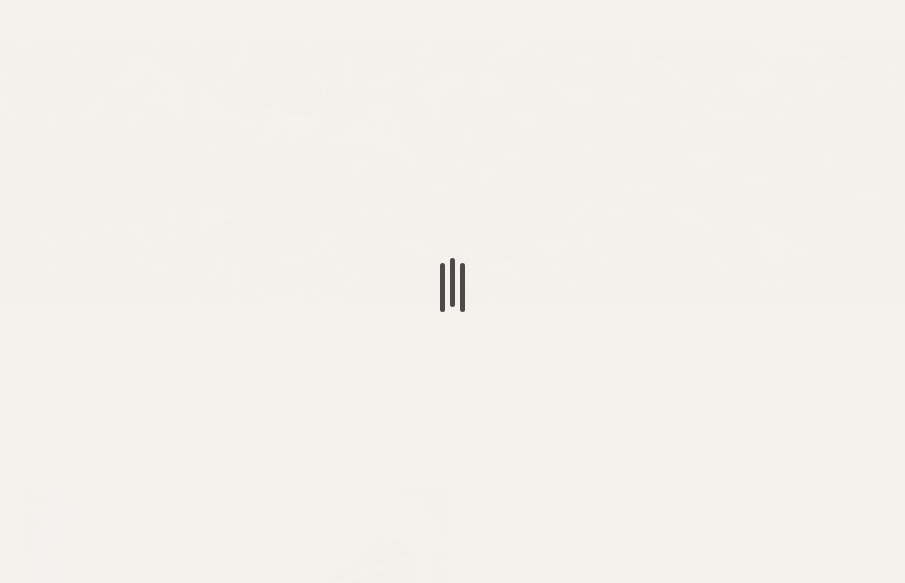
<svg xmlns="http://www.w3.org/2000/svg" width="905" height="583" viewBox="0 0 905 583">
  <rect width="100%" height="100%" fill="#f5f2ee"/>
  <image x="0" y="40" width="905" height="265" href="img1.png"/>
  <image x="37" y="323" width="22" height="18" href="img2.png"/>
  <image x="856" y="327" width="13" height="13" href="img3.png"/>
  <image x="25" y="485" width="428" height="98" href="img4.png"/>
  <rect x="450" y="258" width="5" height="49" rx="2.5" fill="#4b4b4b"/>
  <rect x="440" y="263" width="5" height="49" rx="2.5" fill="#4b4b4b"/>
  <rect x="460" y="263" width="5" height="49" rx="2.5" fill="#4b4b4b"/>
</svg>
